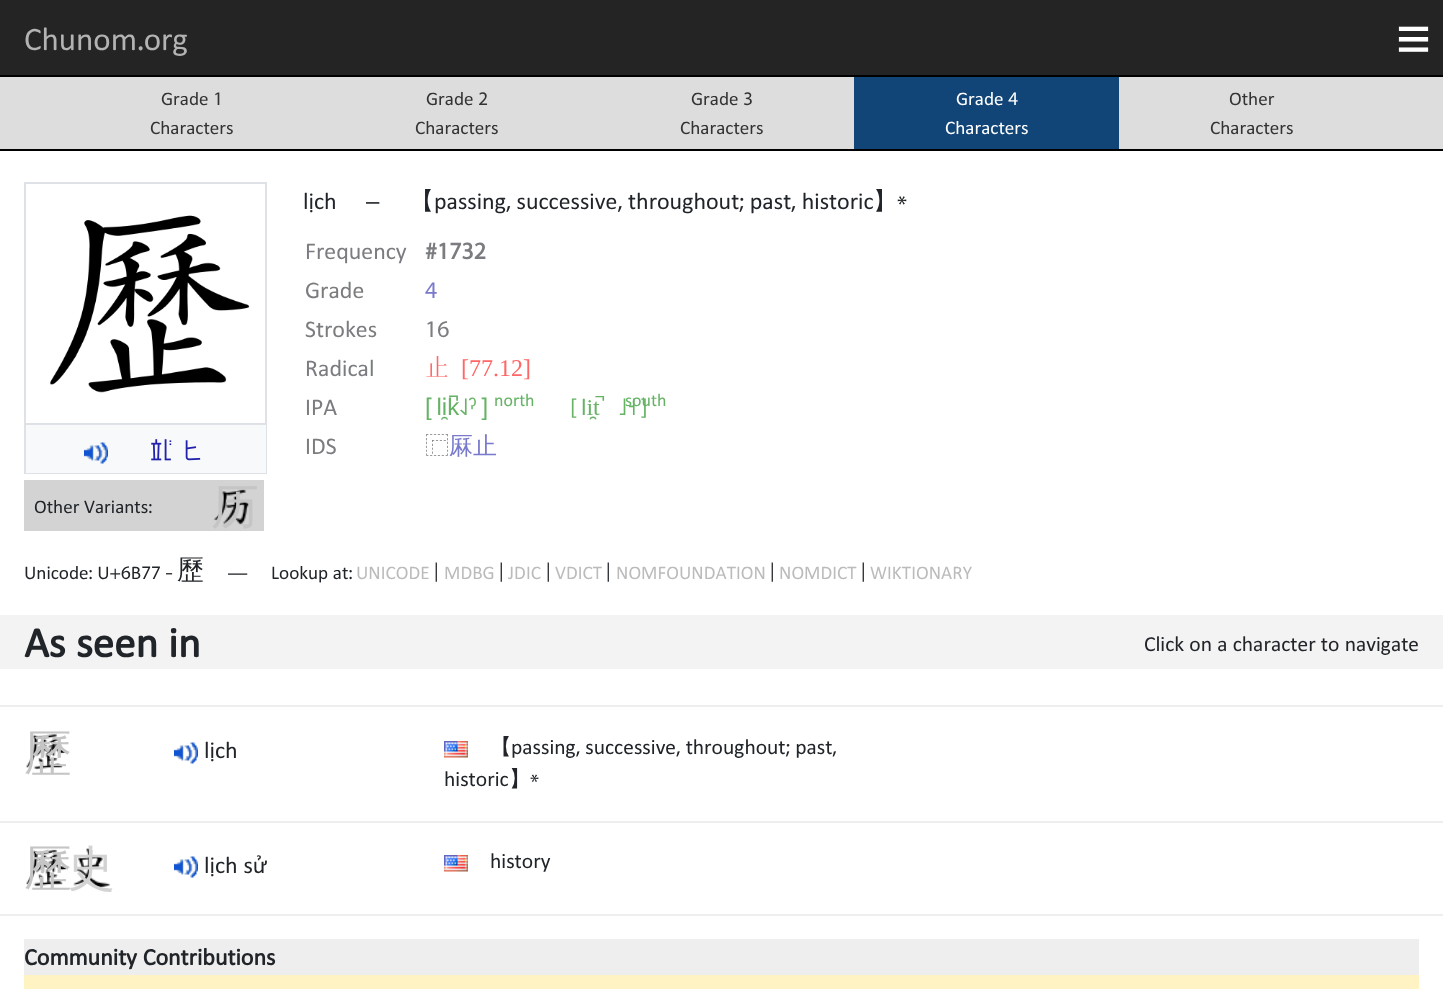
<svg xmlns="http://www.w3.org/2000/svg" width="1443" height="989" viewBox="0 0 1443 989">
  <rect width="100%" height="100%" fill="#ffffff"/>
  <rect x="0" y="0" width="1443" height="75" fill="#242424"/>
  <text x="24" y="50" font-family="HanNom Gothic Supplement" font-size="33" fill="#b3b3b3">Chunom.org</text>
  <text x="1396" y="59" font-family="Liberation Sans" font-size="60" fill="#ffffff">≡</text>
  <rect x="0" y="77" width="1443" height="72" fill="#dddddd"/>
  <rect x="0" y="75" width="1443" height="2" fill="#000000"/>
  <rect x="0" y="149" width="1443" height="2" fill="#000000"/>
  <text x="161" y="105" font-family="HanNom Gothic Supplement" font-size="19.25" fill="#333333">Grade 1</text>
  <text x="150" y="134" font-family="HanNom Gothic Supplement" font-size="19.25" fill="#333333">Characters</text>
  <text x="426" y="105" font-family="HanNom Gothic Supplement" font-size="19.25" fill="#333333">Grade 2</text>
  <text x="415" y="134" font-family="HanNom Gothic Supplement" font-size="19.25" fill="#333333">Characters</text>
  <text x="691" y="105" font-family="HanNom Gothic Supplement" font-size="19.25" fill="#333333">Grade 3</text>
  <text x="680" y="134" font-family="HanNom Gothic Supplement" font-size="19.25" fill="#333333">Characters</text>
  <rect x="854" y="77" width="265" height="72" fill="#114477"/>
  <text x="956" y="105" font-family="HanNom Gothic Supplement" font-size="19.25" fill="#ffffff">Grade 4</text>
  <text x="945" y="134" font-family="HanNom Gothic Supplement" font-size="19.25" fill="#ffffff">Characters</text>
  <text x="1229" y="105" font-family="HanNom Gothic Supplement" font-size="19.25" fill="#333333">Other</text>
  <text x="1210" y="134" font-family="HanNom Gothic Supplement" font-size="19.25" fill="#333333">Characters</text>
  <rect x="25" y="183" width="241" height="290" fill="none" stroke="#dee2e6" stroke-width="2"/>
  <image x="49" y="215" width="201" height="178" href="img1.png"/>
  <rect x="26" y="425" width="240" height="48" fill="#f8f9fa"/>
  <rect x="26" y="423" width="240" height="2" fill="#dee2e6"/>
  <image x="84" y="442" width="24" height="22" href="img2.png"/>
  <image x="151" y="439" width="21" height="22" href="img3.png"/>
  <image x="185" y="440" width="16" height="21" href="img4.png"/>
  <text x="303" y="209" font-family="HanNom Gothic Supplement" font-size="24" fill="#212529">lịch</text>
  <text x="366" y="209" font-family="Liberation Sans" font-size="24" fill="#212529">–</text>
  <text x="410" y="209" font-family="WenQuanYi Zen Hei" font-size="24" font-weight="500" fill="#212529">【</text>
  <text x="434" y="209" font-family="HanNom Gothic Supplement" font-size="24" fill="#212529">passing, successive, throughout; past, historic</text>
  <text x="873" y="209" font-family="WenQuanYi Zen Hei" font-size="24" font-weight="500" fill="#212529">】</text>
  <text x="897" y="209" font-family="HanNom Gothic Supplement" font-size="24" fill="#212529">*</text>
  <text x="305" y="259" font-family="HanNom Gothic Supplement" font-size="24" fill="#7a7c7f">Frequency</text>
  <text x="425" y="259" font-family="HanNom Gothic Supplement" font-size="24" font-weight="bold" fill="#7a7c7f">#1732</text>
  <text x="305" y="298" font-family="HanNom Gothic Supplement" font-size="24" fill="#7a7c7f">Grade</text>
  <text x="425" y="298" font-family="HanNom Gothic Supplement" font-size="24" fill="#7a7acc">4</text>
  <text x="305" y="337" font-family="HanNom Gothic Supplement" font-size="24" fill="#7a7c7f">Strokes</text>
  <text x="425" y="337" font-family="HanNom Gothic Supplement" font-size="24" fill="#7a7c7f">16</text>
  <text x="305" y="376" font-family="HanNom Gothic Supplement" font-size="24" fill="#7a7c7f">Radical</text>
  <text x="425" y="376" font-family="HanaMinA" font-size="24" font-weight="500" fill="#ff6666">⽌</text>
  <text x="461" y="376" font-family="Liberation Serif" font-size="24" fill="#ff6666">[77.12]</text>
  <text x="305" y="415" font-family="HanNom Gothic Supplement" font-size="24" fill="#7a7c7f">IPA</text>
  <text x="425" y="415" font-family="Liberation Sans" font-size="24" fill="#66b366">[ li̯k̚˨˩ˀ ]</text>
  <text x="494" y="406" font-family="HanNom Gothic Supplement" font-size="18" fill="#66b366">north</text>
  <text x="570" y="415" font-family="HanNom Gothic Supplement" font-size="24" fill="#66b366">[</text>
  <text x="581" y="415" font-family="HanNom Gothic Supplement" font-size="24" fill="#66b366">li̯t̚</text>
  <text x="618" y="415" font-family="Liberation Sans" font-size="24" fill="#66b366">˩˧</text>
  <text x="641" y="415" font-family="HanNom Gothic Supplement" font-size="24" fill="#66b366">]</text>
  <text x="625" y="406" font-family="HanNom Gothic Supplement" font-size="18" fill="#66b366">south</text>
  <text x="305" y="454" font-family="HanNom Gothic Supplement" font-size="24" fill="#7a7c7f">IDS</text>
  <text x="425" y="454" font-family="Chiron Hei HK" font-size="24" fill="#7a7c7f">⿸</text>
  <text x="449" y="454" font-family="WenQuanYi Zen Hei" font-size="24" font-weight="500" fill="#7a7acc">厤止</text>
  <rect x="24" y="480" width="240" height="51" fill="#d3d3d3"/>
  <text x="34" y="513" font-family="HanNom Gothic Supplement" font-size="19.25" fill="#212529">Other Variants:</text>
  <image x="214" y="489" width="35" height="36" href="img5.png"/>
  <text x="211" y="523" font-family="WenQuanYi Zen Hei" font-size="48" font-weight="500" fill="#c5c5c5">历</text>
  <text x="24" y="579" font-family="HanNom Gothic Supplement" font-size="19.25" fill="#212529">Unicode: U+6B77 -</text>
  <text x="177" y="579" font-family="WenQuanYi Zen Hei" font-size="27" font-weight="500" fill="#212529">歷</text>
  <text x="228" y="579" font-family="Liberation Sans" font-size="19.25" fill="#212529">—</text>
  <text x="271" y="579" font-family="HanNom Gothic Supplement" font-size="19.25" fill="#212529">Lookup at:</text>
  <text x="356" y="579" font-family="HanNom Gothic Supplement" font-size="19.25" fill="#bbbbbb">UNICODE</text>
  <text x="434" y="579" font-family="HanNom Gothic Supplement" font-size="19.25" fill="#212529">|</text>
  <text x="444" y="579" font-family="HanNom Gothic Supplement" font-size="19.25" fill="#bbbbbb">MDBG</text>
  <text x="499" y="579" font-family="HanNom Gothic Supplement" font-size="19.25" fill="#212529">|</text>
  <text x="508" y="579" font-family="HanNom Gothic Supplement" font-size="19.25" fill="#bbbbbb">JDIC</text>
  <text x="546" y="579" font-family="HanNom Gothic Supplement" font-size="19.25" fill="#212529">|</text>
  <text x="555" y="579" font-family="HanNom Gothic Supplement" font-size="19.25" fill="#bbbbbb">VDICT</text>
  <text x="606" y="579" font-family="HanNom Gothic Supplement" font-size="19.25" fill="#212529">|</text>
  <text x="616" y="579" font-family="HanNom Gothic Supplement" font-size="19.25" fill="#bbbbbb">NOMFOUNDATION</text>
  <text x="770" y="579" font-family="HanNom Gothic Supplement" font-size="19.25" fill="#212529">|</text>
  <text x="779" y="579" font-family="HanNom Gothic Supplement" font-size="19.25" fill="#bbbbbb">NOMDICT</text>
  <text x="861" y="579" font-family="HanNom Gothic Supplement" font-size="19.25" fill="#212529">|</text>
  <text x="870" y="579" font-family="HanNom Gothic Supplement" font-size="19.25" fill="#bbbbbb">WIKTIONARY</text>
  <rect x="0" y="615" width="1443" height="54" fill="#f3f3f3"/>
  <text x="24" y="657" font-family="HanNom Gothic Supplement" font-size="43" font-weight="bold" fill="#212529">As seen in</text>
  <text x="1144" y="651" font-family="HanNom Gothic Supplement" font-size="21.6" fill="#212529">Click on a character to navigate</text>
  <rect x="0" y="705" width="1443" height="2" fill="#eeeeee"/>
  <image x="26" y="734" width="42" height="36" href="img6.png"/>
  <text x="24" y="770" font-family="WenQuanYi Zen Hei" font-size="48" font-weight="500" fill="#c5c5c5">歷</text>
  <image x="174" y="742" width="24" height="22" href="img7.png"/>
  <text x="204" y="758" font-family="HanNom Gothic Supplement" font-size="24" fill="#212529">lịch</text>
  <image x="444" y="741" width="24" height="17" href="img8.png"/>
  <text x="490" y="754" font-family="WenQuanYi Zen Hei" font-size="21.6" font-weight="500" fill="#212529">【</text>
  <text x="511" y="754" font-family="HanNom Gothic Supplement" font-size="21.6" fill="#212529">passing, successive, throughout; past,</text>
  <text x="444" y="786" font-family="HanNom Gothic Supplement" font-size="21.6" fill="#212529">historic</text>
  <text x="509" y="786" font-family="WenQuanYi Zen Hei" font-size="21.6" font-weight="500" fill="#212529">】</text>
  <text x="530" y="786" font-family="HanNom Gothic Supplement" font-size="21.6" fill="#212529">*</text>
  <rect x="0" y="821" width="1443" height="2" fill="#eeeeee"/>
  <image x="26" y="849" width="42" height="38" href="img9.png"/>
  <text x="24" y="885" font-family="WenQuanYi Zen Hei" font-size="48" font-weight="500" fill="#c5c5c5">歷</text>
  <image x="73" y="848" width="37" height="41" href="img10.png"/>
  <text x="67" y="885" font-family="WenQuanYi Zen Hei" font-size="48" font-weight="500" fill="#d3d3d3">史</text>
  <image x="174" y="856" width="24" height="22" href="img7.png"/>
  <text x="204" y="873" font-family="HanNom Gothic Supplement" font-size="24" fill="#212529">lịch sử</text>
  <image x="444" y="855" width="24" height="17" href="img8.png"/>
  <text x="490" y="868" font-family="HanNom Gothic Supplement" font-size="21.6" fill="#212529">history</text>
  <rect x="0" y="914" width="1443" height="2" fill="#eeeeee"/>
  <rect x="24" y="939" width="1395" height="36" fill="#eeeeee"/>
  <text x="24" y="965" font-family="HanNom Gothic Supplement" font-size="24" font-weight="bold" fill="#212529">Community Contributions</text>
  <rect x="24" y="975" width="1395" height="14" fill="#fff3c4"/>
</svg>
